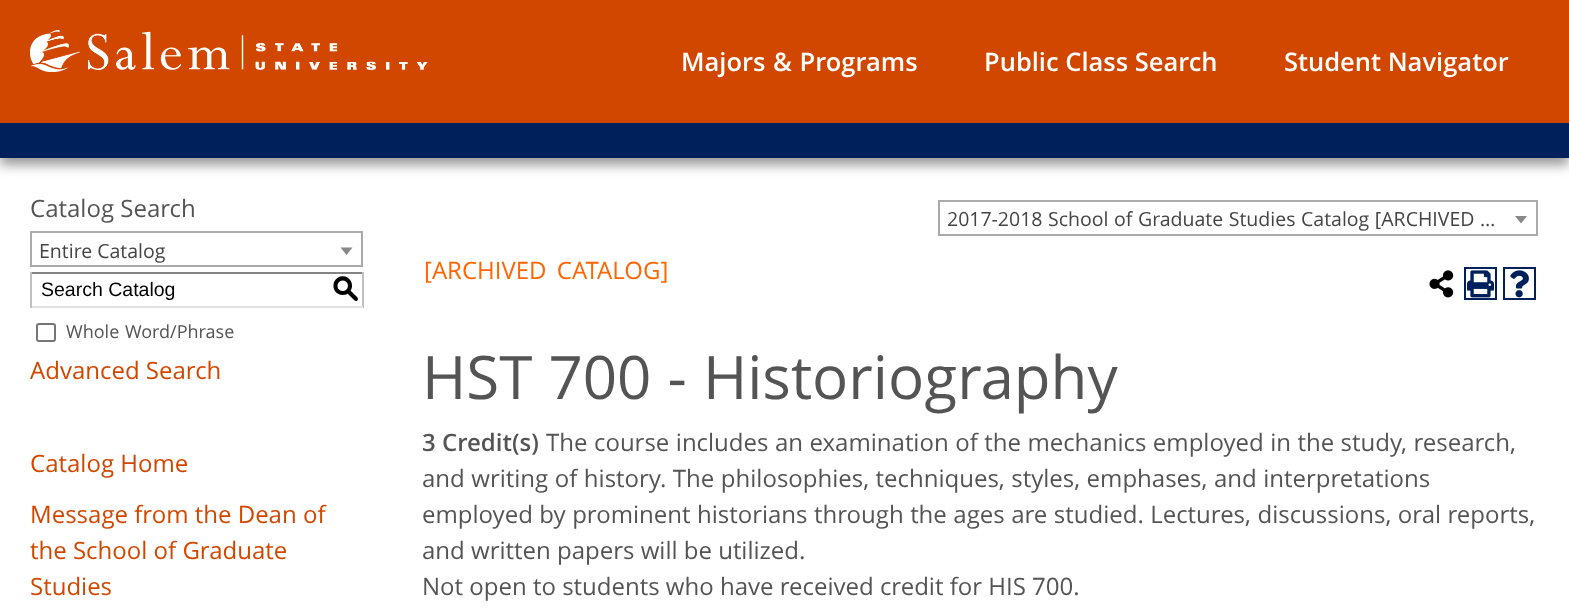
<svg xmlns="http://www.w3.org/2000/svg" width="1569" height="613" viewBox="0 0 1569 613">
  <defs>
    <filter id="blur1" x="-50%" y="-200%" width="200%" height="500%"><feGaussianBlur stdDeviation="6"/></filter>
  </defs>
  <rect width="100%" height="100%" fill="#ffffff"/>
  <rect x="0" y="0" width="1569" height="123" fill="#d24700"/>
  <image x="30" y="30" width="398" height="42" href="img1.png"/>
  <text x="681" y="71" word-spacing="1" font-family="Open Sans" font-size="25.5" font-weight="600" fill="#ffffff">Majors &amp; Programs</text>
  <text x="984" y="71" font-family="Open Sans" font-size="25.5" font-weight="600" fill="#ffffff">Public Class Search</text>
  <text x="1284" y="71" font-family="Open Sans" font-size="25.5" font-weight="600" fill="#ffffff">Student Navigator</text>
  <rect x="0" y="131" width="1569" height="34" fill="#000000" fill-opacity="0.4" filter="url(#blur1)"/>
  <rect x="0" y="123" width="1569" height="35" fill="#00205b"/>
  <text x="30" y="217" font-family="Open Sans" font-size="24" fill="#545454">Catalog Search</text>
  <rect x="31" y="232" width="331" height="34" fill="none" stroke="#aaaaaa" stroke-width="2"/>
  <text x="39" y="258" font-family="Open Sans" font-size="19.5" fill="#444444">Entire Catalog</text>
  <path d="M340.5 247.5H352.5L346.5 255Z" fill="#888888"/>
  <rect x="30" y="272" width="333" height="2" fill="#848484"/>
  <rect x="362" y="272" width="2" height="36" fill="#c1c1c1"/>
  <rect x="30" y="306" width="333" height="2" fill="#e1e1e1"/>
  <rect x="30" y="272" width="2" height="36" fill="#c1c1c1"/>
  <text x="41" y="296" font-family="Liberation Sans" font-size="19.5" fill="#000000">Search Catalog</text>
  <text x="332" y="297" font-family="'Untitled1'" font-size="27" font-weight="500" fill="#000000">S</text>
  <rect x="37" y="324" width="18" height="17" rx="2" fill="none" stroke="#767676" stroke-width="2"/>
  <text x="66" y="338" word-spacing="1" font-family="Open Sans" font-size="18" fill="#545454">Whole Word/Phrase</text>
  <text x="30" y="379" font-family="Open Sans" font-size="24" fill="#d24700">Advanced Search</text>
  <text x="30" y="472" font-family="Open Sans" font-size="24" fill="#d24700">Catalog Home</text>
  <text x="30" y="523" font-family="Open Sans" font-size="24" fill="#d24700">Message from the Dean of</text>
  <text x="30" y="559" font-family="Open Sans" font-size="24" fill="#d24700">the School of Graduate</text>
  <text x="30" y="595" font-family="Open Sans" font-size="24" fill="#d24700">Studies</text>
  <text x="424" y="279" word-spacing="4" font-family="Open Sans" font-size="24" fill="#ff6600">[ARCHIVED CATALOG]</text>
  <image x="1429" y="270" width="25" height="28" href="img2.png"/>
  <rect x="1465" y="268" width="31" height="31" fill="none" stroke="#00205b" stroke-width="2"/>
  <image x="1467" y="270" width="27" height="28" href="img3.png"/>
  <rect x="1504" y="268" width="31" height="31" fill="none" stroke="#00205b" stroke-width="2"/>
  <image x="1510" y="270" width="19" height="28" href="img4.png"/>
  <text x="422" y="399" word-spacing="0.5" font-family="Open Sans" font-size="60" fill="#545454">HST 700 - Historiography</text>
  <text x="422" y="451" font-family="Open Sans" font-size="24" font-weight="600" fill="#545454">3 Credit(s)</text>
  <text x="546" y="451" word-spacing="0.25" font-family="Open Sans" font-size="24" fill="#545454">The course includes an examination of the mechanics employed in the study, research,</text>
  <text x="422" y="487" word-spacing="0.25" font-family="Open Sans" font-size="24" fill="#545454">and writing of history. The philosophies, techniques, styles, emphases, and interpretations</text>
  <text x="422" y="523" word-spacing="0.25" font-family="Open Sans" font-size="24" fill="#545454">employed by prominent historians through the ages are studied. Lectures, discussions, oral reports,</text>
  <text x="422" y="559" font-family="Open Sans" font-size="24" fill="#545454">and written papers will be utilized.</text>
  <text x="422" y="595" font-family="Open Sans" font-size="24" fill="#545454">Not open to students who have received credit for HIS 700.</text>
  <rect x="939" y="201" width="598" height="34" fill="none" stroke="#aaaaaa" stroke-width="2"/>
  <text x="947" y="226" word-spacing="0.5" font-family="Open Sans" font-size="19.5" fill="#444444">2017-2018 School of Graduate Studies Catalog [ARCHIVED …</text>
  <path d="M1515 216H1527L1521 223.5Z" fill="#888888"/>
</svg>
